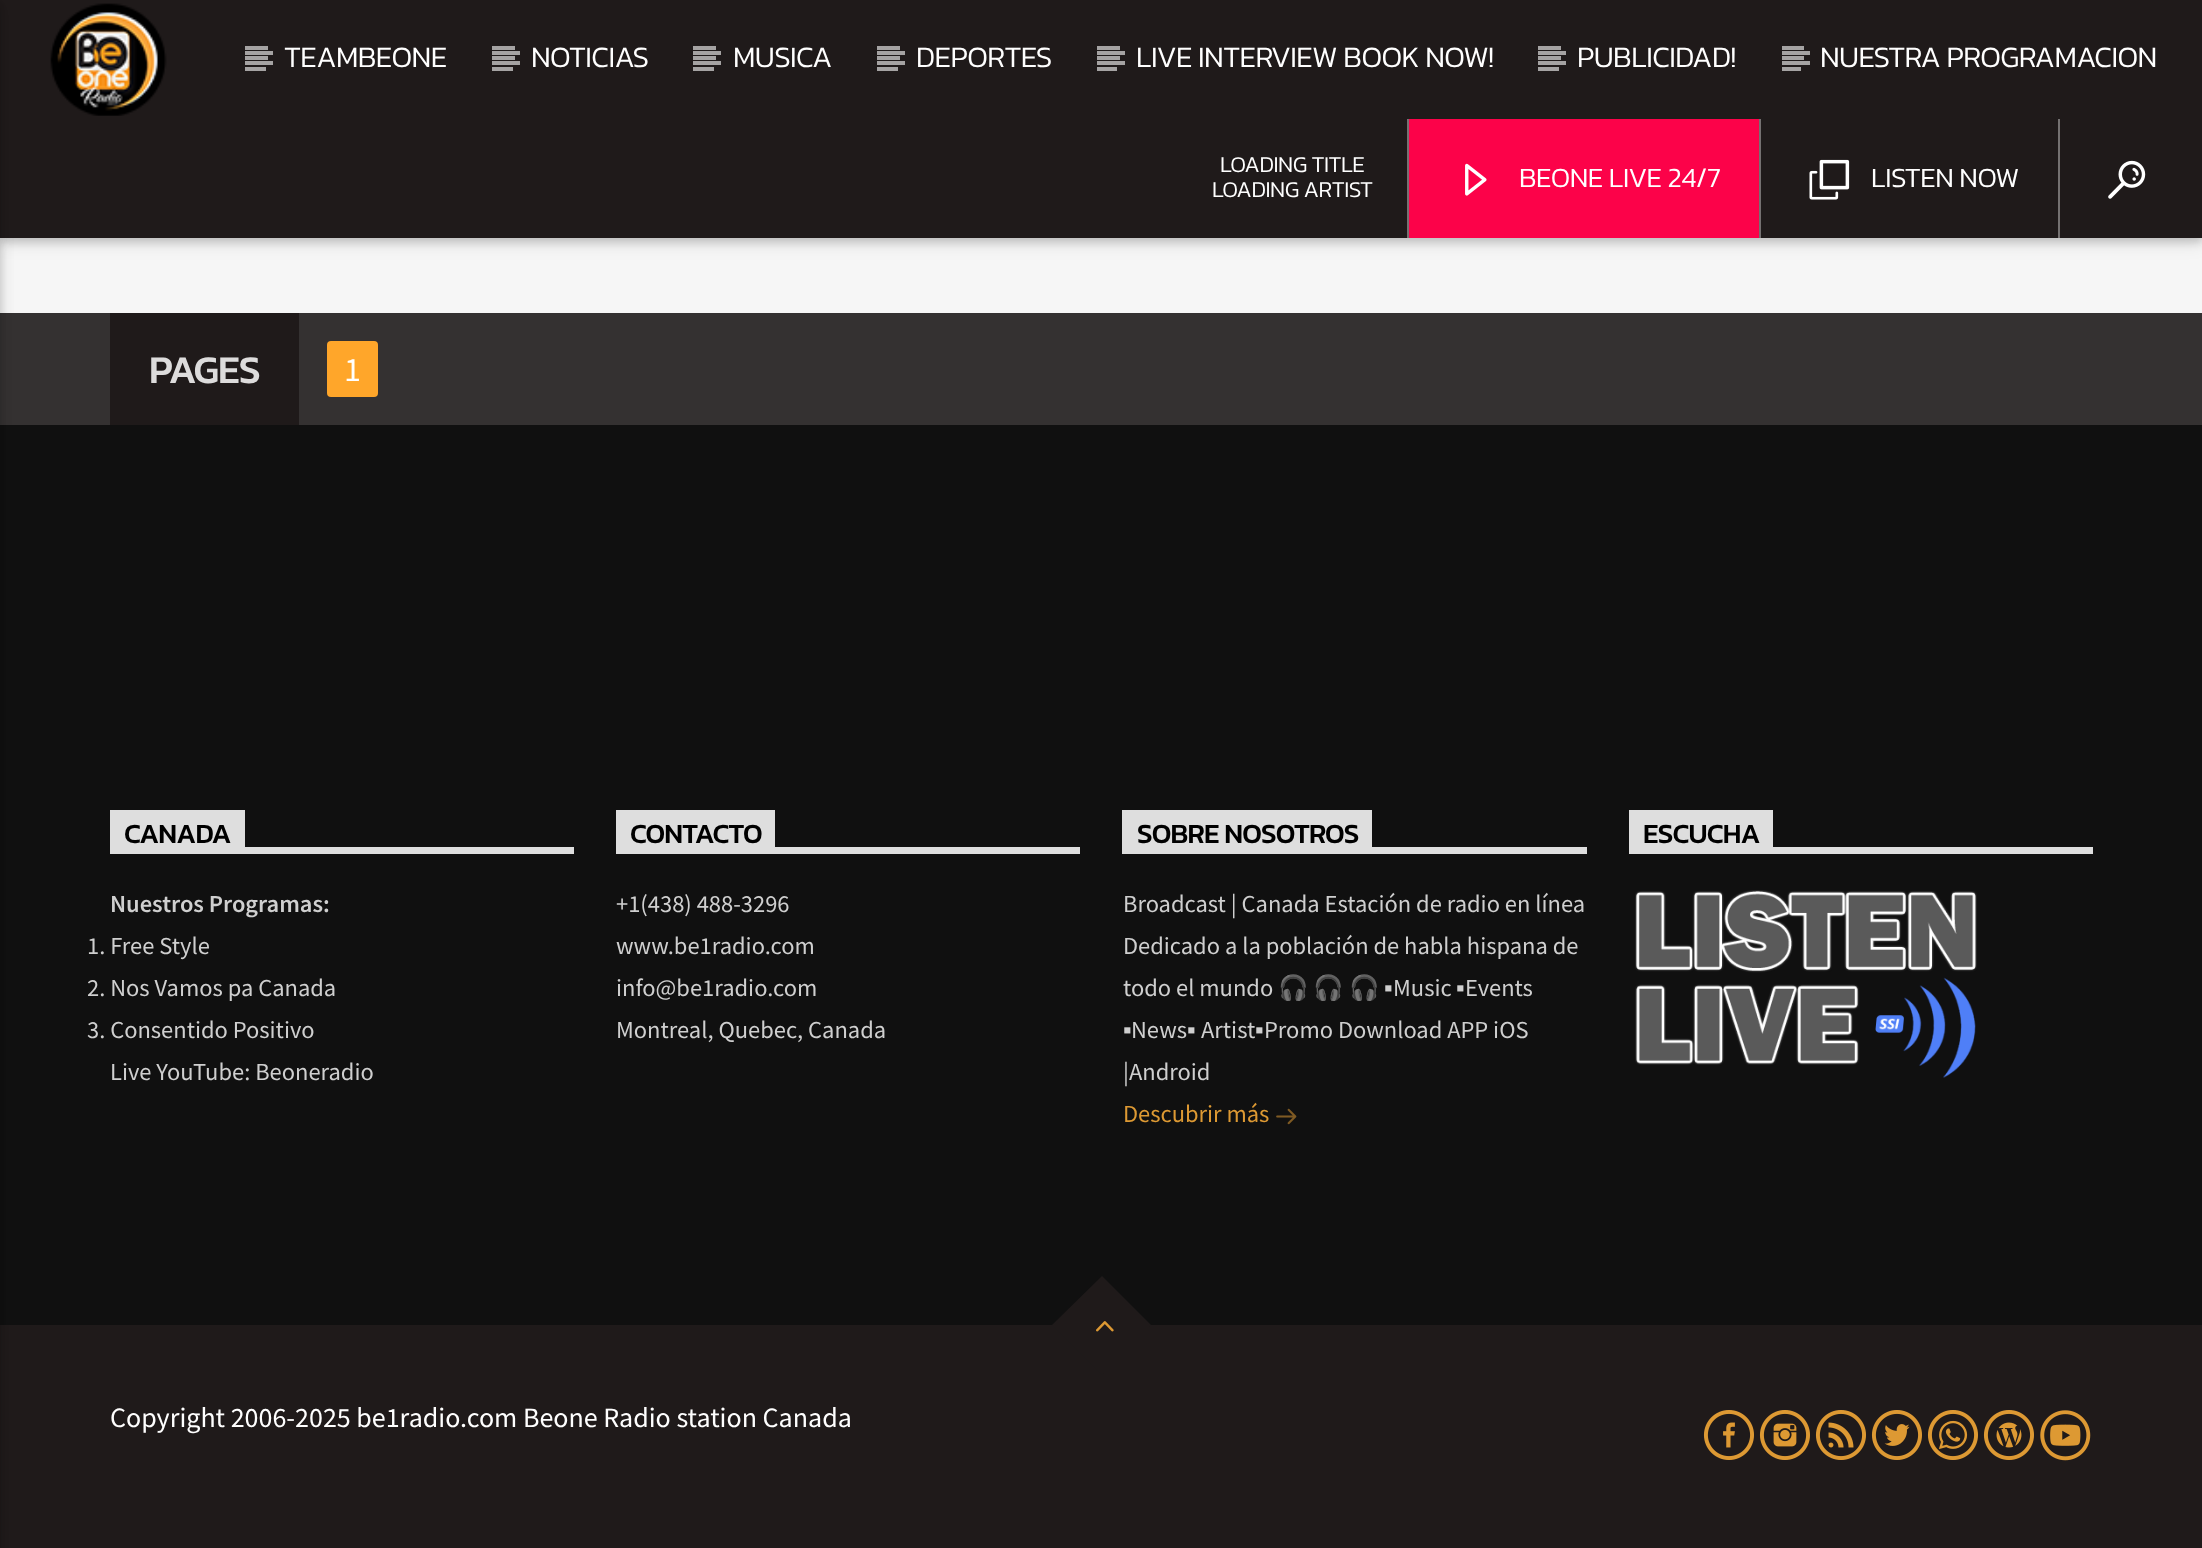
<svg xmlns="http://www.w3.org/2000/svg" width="2202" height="1548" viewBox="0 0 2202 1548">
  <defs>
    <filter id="blur1" x="-50%" y="-200%" width="200%" height="500%"><feGaussianBlur stdDeviation="9"/></filter>
    <filter id="blur2" x="-50%" y="-200%" width="200%" height="500%"><feGaussianBlur stdDeviation="4.5"/></filter>
  </defs>
  <rect width="100%" height="100%" fill="#f6f6f6"/>
  <rect x="0" y="4" width="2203" height="238" fill="#000000" fill-opacity="0.12" filter="url(#blur1)"/>
  <rect x="0" y="4" width="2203" height="238" fill="#000000" fill-opacity="0.16" filter="url(#blur2)"/>
  <rect x="0" y="0" width="2202" height="238" fill="#1f1a1a"/>
  <rect x="0" y="313" width="2202" height="112" fill="#343131"/>
  <rect x="0" y="425" width="2202" height="900" fill="#101010"/>
  <rect x="0" y="1325" width="2202" height="223" fill="#1f1a1a"/>
  <rect x="-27" y="4" width="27" height="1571" fill="#000000" fill-opacity="0.12" filter="url(#blur1)"/>
  <rect x="-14" y="4" width="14" height="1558" fill="#000000" fill-opacity="0.16" filter="url(#blur2)"/>
  <image x="50" y="3" width="117" height="113" href="img1.png"/>
  <rect x="245" y="46" width="23" height="4" fill="#a5a3a3"/>
  <rect x="245" y="56" width="23" height="4" fill="#a5a3a3"/>
  <text x="284" y="67" font-family="Kanit" font-size="29.75" font-weight="300" letter-spacing="-0.6" fill="#ffffff">TEAMBEONE</text>
  <rect x="245" y="51" width="28" height="4" fill="#a5a3a3"/>
  <rect x="245" y="61" width="28" height="4" fill="#a5a3a3"/>
  <rect x="245" y="67" width="21" height="4" fill="#a5a3a3"/>
  <rect x="492" y="46" width="23" height="4" fill="#a5a3a3"/>
  <rect x="492" y="56" width="23" height="4" fill="#a5a3a3"/>
  <text x="531" y="67" font-family="Kanit" font-size="29.75" font-weight="300" letter-spacing="-0.6" fill="#ffffff">NOTICIAS</text>
  <rect x="492" y="51" width="28" height="4" fill="#a5a3a3"/>
  <rect x="492" y="61" width="28" height="4" fill="#a5a3a3"/>
  <rect x="492" y="67" width="21" height="4" fill="#a5a3a3"/>
  <rect x="693" y="46" width="23" height="4" fill="#a5a3a3"/>
  <rect x="693" y="56" width="23" height="4" fill="#a5a3a3"/>
  <text x="733" y="67" font-family="Kanit" font-size="29.75" font-weight="300" letter-spacing="-0.6" fill="#ffffff">MUSICA</text>
  <rect x="693" y="51" width="28" height="4" fill="#a5a3a3"/>
  <rect x="693" y="61" width="28" height="4" fill="#a5a3a3"/>
  <rect x="693" y="67" width="21" height="4" fill="#a5a3a3"/>
  <rect x="877" y="46" width="23" height="4" fill="#a5a3a3"/>
  <rect x="877" y="56" width="23" height="4" fill="#a5a3a3"/>
  <text x="916" y="67" font-family="Kanit" font-size="29.75" font-weight="300" letter-spacing="-0.6" fill="#ffffff">DEPORTES</text>
  <rect x="877" y="51" width="28" height="4" fill="#a5a3a3"/>
  <rect x="877" y="61" width="28" height="4" fill="#a5a3a3"/>
  <rect x="877" y="67" width="21" height="4" fill="#a5a3a3"/>
  <rect x="1097" y="46" width="23" height="4" fill="#a5a3a3"/>
  <rect x="1097" y="56" width="23" height="4" fill="#a5a3a3"/>
  <text x="1136" y="67" font-family="Kanit" font-size="29.75" font-weight="300" letter-spacing="-0.6" fill="#ffffff">LIVE INTERVIEW BOOK NOW!</text>
  <rect x="1097" y="51" width="28" height="4" fill="#a5a3a3"/>
  <rect x="1097" y="61" width="28" height="4" fill="#a5a3a3"/>
  <rect x="1097" y="67" width="20" height="4" fill="#a5a3a3"/>
  <rect x="1538" y="46" width="23" height="4" fill="#a5a3a3"/>
  <rect x="1538" y="56" width="23" height="4" fill="#a5a3a3"/>
  <text x="1577" y="67" font-family="Kanit" font-size="29.75" font-weight="300" letter-spacing="-0.6" fill="#ffffff">PUBLICIDAD!</text>
  <rect x="1538" y="51" width="28" height="4" fill="#a5a3a3"/>
  <rect x="1538" y="61" width="28" height="4" fill="#a5a3a3"/>
  <rect x="1538" y="67" width="21" height="4" fill="#a5a3a3"/>
  <rect x="1782" y="46" width="22" height="4" fill="#a5a3a3"/>
  <rect x="1782" y="56" width="22" height="4" fill="#a5a3a3"/>
  <text x="1820" y="67" font-family="Kanit" font-size="29.75" font-weight="300" letter-spacing="-0.6" fill="#ffffff">NUESTRA PROGRAMACION</text>
  <rect x="1782" y="51" width="28" height="4" fill="#a5a3a3"/>
  <rect x="1782" y="61" width="28" height="4" fill="#a5a3a3"/>
  <rect x="1782" y="67" width="19" height="4" fill="#a5a3a3"/>
  <text x="1220" y="172" font-family="Kanit" font-size="22.75" font-weight="300" letter-spacing="-0.5" fill="#ffffff">LOADING TITLE</text>
  <text x="1212" y="197" font-family="Kanit" font-size="22.75" font-weight="300" letter-spacing="-0.5" fill="#ffffff">LOADING ARTIST</text>
  <rect x="1407" y="119" width="2" height="119" fill="#747171"/>
  <rect x="1409" y="119" width="350" height="119" fill="#fc0249"/>
  <image x="1465" y="163" width="22" height="33" href="img2.png"/>
  <text x="1519" y="187" font-family="Kanit" font-size="28" font-weight="300" letter-spacing="-0.5" fill="#ffffff">BEONE LIVE 24/7</text>
  <rect x="1759" y="119" width="2" height="119" fill="#747171"/>
  <image x="1809" y="159" width="41" height="41" href="img3.png"/>
  <text x="1871" y="187" font-family="Kanit" font-size="28" font-weight="300" letter-spacing="-0.5" fill="#ffffff">LISTEN NOW</text>
  <rect x="2058" y="119" width="2" height="119" fill="#747171"/>
  <image x="2108" y="160" width="38" height="39" href="img4.png"/>
  <rect x="110" y="313" width="189" height="112" fill="#1f1a1a"/>
  <text x="149" y="383" font-family="Kanit" font-size="39.5" font-weight="500" letter-spacing="-1" fill="#dddcdc">PAGES</text>
  <rect x="327" y="341" width="51" height="56" rx="4" fill="#ffa62a"/>
  <text x="344" y="381" font-family="Source Sans Pro" font-size="34" fill="#ffffff">1</text>
  <rect x="245" y="847" width="329" height="7" fill="#dedede"/>
  <rect x="110" y="810" width="135" height="44" fill="#dedede"/>
  <text x="124" y="843" font-family="Kanit" font-size="28" font-weight="500" letter-spacing="-0.8" fill="#000000">CANADA</text>
  <text x="110" y="912" font-family="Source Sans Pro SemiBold" font-size="24.5" font-weight="600" fill="#cfcfcf">Nuestros Programas:</text>
  <text x="87" y="954" font-family="Source Sans Pro" font-size="24.5" fill="#cfcfcf">1. Free Style</text>
  <text x="87" y="996" font-family="Source Sans Pro" font-size="24.5" fill="#cfcfcf">2. Nos Vamos pa Canada</text>
  <text x="87" y="1038" font-family="Source Sans Pro" font-size="24.5" fill="#cfcfcf">3. Consentido Positivo</text>
  <text x="110" y="1080" font-family="Source Sans Pro" font-size="24.5" fill="#cfcfcf">Live YouTube: Beoneradio</text>
  <rect x="775" y="847" width="305" height="7" fill="#dedede"/>
  <rect x="616" y="810" width="159" height="44" fill="#dedede"/>
  <text x="630" y="843" font-family="Kanit" font-size="28" font-weight="500" letter-spacing="-0.8" fill="#000000">CONTACTO</text>
  <text x="616" y="912" font-family="Source Sans Pro" font-size="24.5" fill="#cfcfcf">+1(438) 488-3296</text>
  <text x="616" y="954" font-family="Source Sans Pro" font-size="24.5" fill="#cfcfcf">www.be1radio.com</text>
  <text x="616" y="996" font-family="Source Sans Pro" font-size="24.5" fill="#cfcfcf">info@be1radio.com</text>
  <text x="616" y="1038" font-family="Source Sans Pro" font-size="24.5" fill="#cfcfcf">Montreal, Quebec, Canada</text>
  <rect x="1372" y="847" width="215" height="7" fill="#dedede"/>
  <rect x="1122" y="810" width="250" height="44" fill="#dedede"/>
  <text x="1137" y="843" font-family="Kanit" font-size="28" font-weight="500" letter-spacing="-0.8" fill="#000000">SOBRE NOSOTROS</text>
  <text x="1123" y="912" font-family="Source Sans Pro" font-size="24.5" fill="#cfcfcf">Broadcast | Canada Estación de radio en línea</text>
  <text x="1123" y="954" font-family="Source Sans Pro" font-size="24.5" fill="#cfcfcf">Dedicado a la población de habla hispana de</text>
  <text x="1123" y="996" font-family="Source Sans Pro" font-size="24.5" fill="#cfcfcf">todo el mundo</text>
  <text x="1278" y="996" font-family="Noto Color Emoji" font-size="24.5" fill="#cfcfcf">🎧</text>
  <text x="1313" y="996" font-family="Noto Color Emoji" font-size="24.5" fill="#cfcfcf">🎧</text>
  <text x="1349" y="996" font-family="Noto Color Emoji" font-size="24.5" fill="#cfcfcf">🎧</text>
  <text x="1384" y="996" font-family="Liberation Serif" font-size="24.5" fill="#cfcfcf">▪</text>
  <text x="1393" y="996" font-family="Source Sans Pro" font-size="24.5" fill="#cfcfcf">Music</text>
  <text x="1456" y="996" font-family="Liberation Serif" font-size="24.5" fill="#cfcfcf">▪</text>
  <text x="1465" y="996" font-family="Source Sans Pro" font-size="24.5" fill="#cfcfcf">Events</text>
  <text x="1123" y="1038" font-family="Liberation Serif" font-size="24.5" fill="#cfcfcf">▪</text>
  <text x="1131" y="1038" font-family="Source Sans Pro" font-size="24.5" fill="#cfcfcf">News</text>
  <text x="1187" y="1038" font-family="Liberation Serif" font-size="24.5" fill="#cfcfcf">▪</text>
  <text x="1201" y="1038" font-family="Source Sans Pro" font-size="24.5" fill="#cfcfcf">Artist</text>
  <text x="1255" y="1038" font-family="Liberation Serif" font-size="24.5" fill="#cfcfcf">▪</text>
  <text x="1264" y="1038" font-family="Source Sans Pro" font-size="24.5" fill="#cfcfcf">Promo Download APP iOS</text>
  <text x="1123" y="1080" font-family="Source Sans Pro" font-size="24.5" fill="#cfcfcf">|Android</text>
  <text x="1123" y="1122" font-family="Source Sans Pro" font-size="24.5" fill="#dd9933">Descubrir más</text>
  <image x="1276" y="1108" width="21" height="17" href="img5.png"/>
  <rect x="1773" y="847" width="320" height="7" fill="#dedede"/>
  <rect x="1629" y="810" width="144" height="44" fill="#dedede"/>
  <text x="1643" y="843" font-family="Kanit" font-size="28" font-weight="500" letter-spacing="-0.8" fill="#000000">ESCUCHA</text>
  <image x="1635" y="890" width="342" height="188" href="img6.png"/>
  <path d="M1052 1325L1102 1276L1151 1325L1102 1375Z" fill="#1f1a1a"/>
  <image x="1096" y="1321" width="18" height="11" href="img7.png"/>
  <text x="110" y="1427" font-family="Source Sans Pro" font-size="28" fill="#ffffff">Copyright 2006-2025 be1radio.com Beone Radio station Canada</text>
  <image x="1703" y="1410" width="51" height="50" href="img8.png"/>
  <image x="1759" y="1410" width="51" height="50" href="img9.png"/>
  <image x="1815" y="1410" width="51" height="50" href="img10.png"/>
  <image x="1871" y="1410" width="51" height="50" href="img11.png"/>
  <image x="1927" y="1410" width="51" height="50" href="img12.png"/>
  <image x="1983" y="1410" width="51" height="50" href="img13.png"/>
  <image x="2040" y="1410" width="51" height="51" href="img14.png"/>
</svg>
